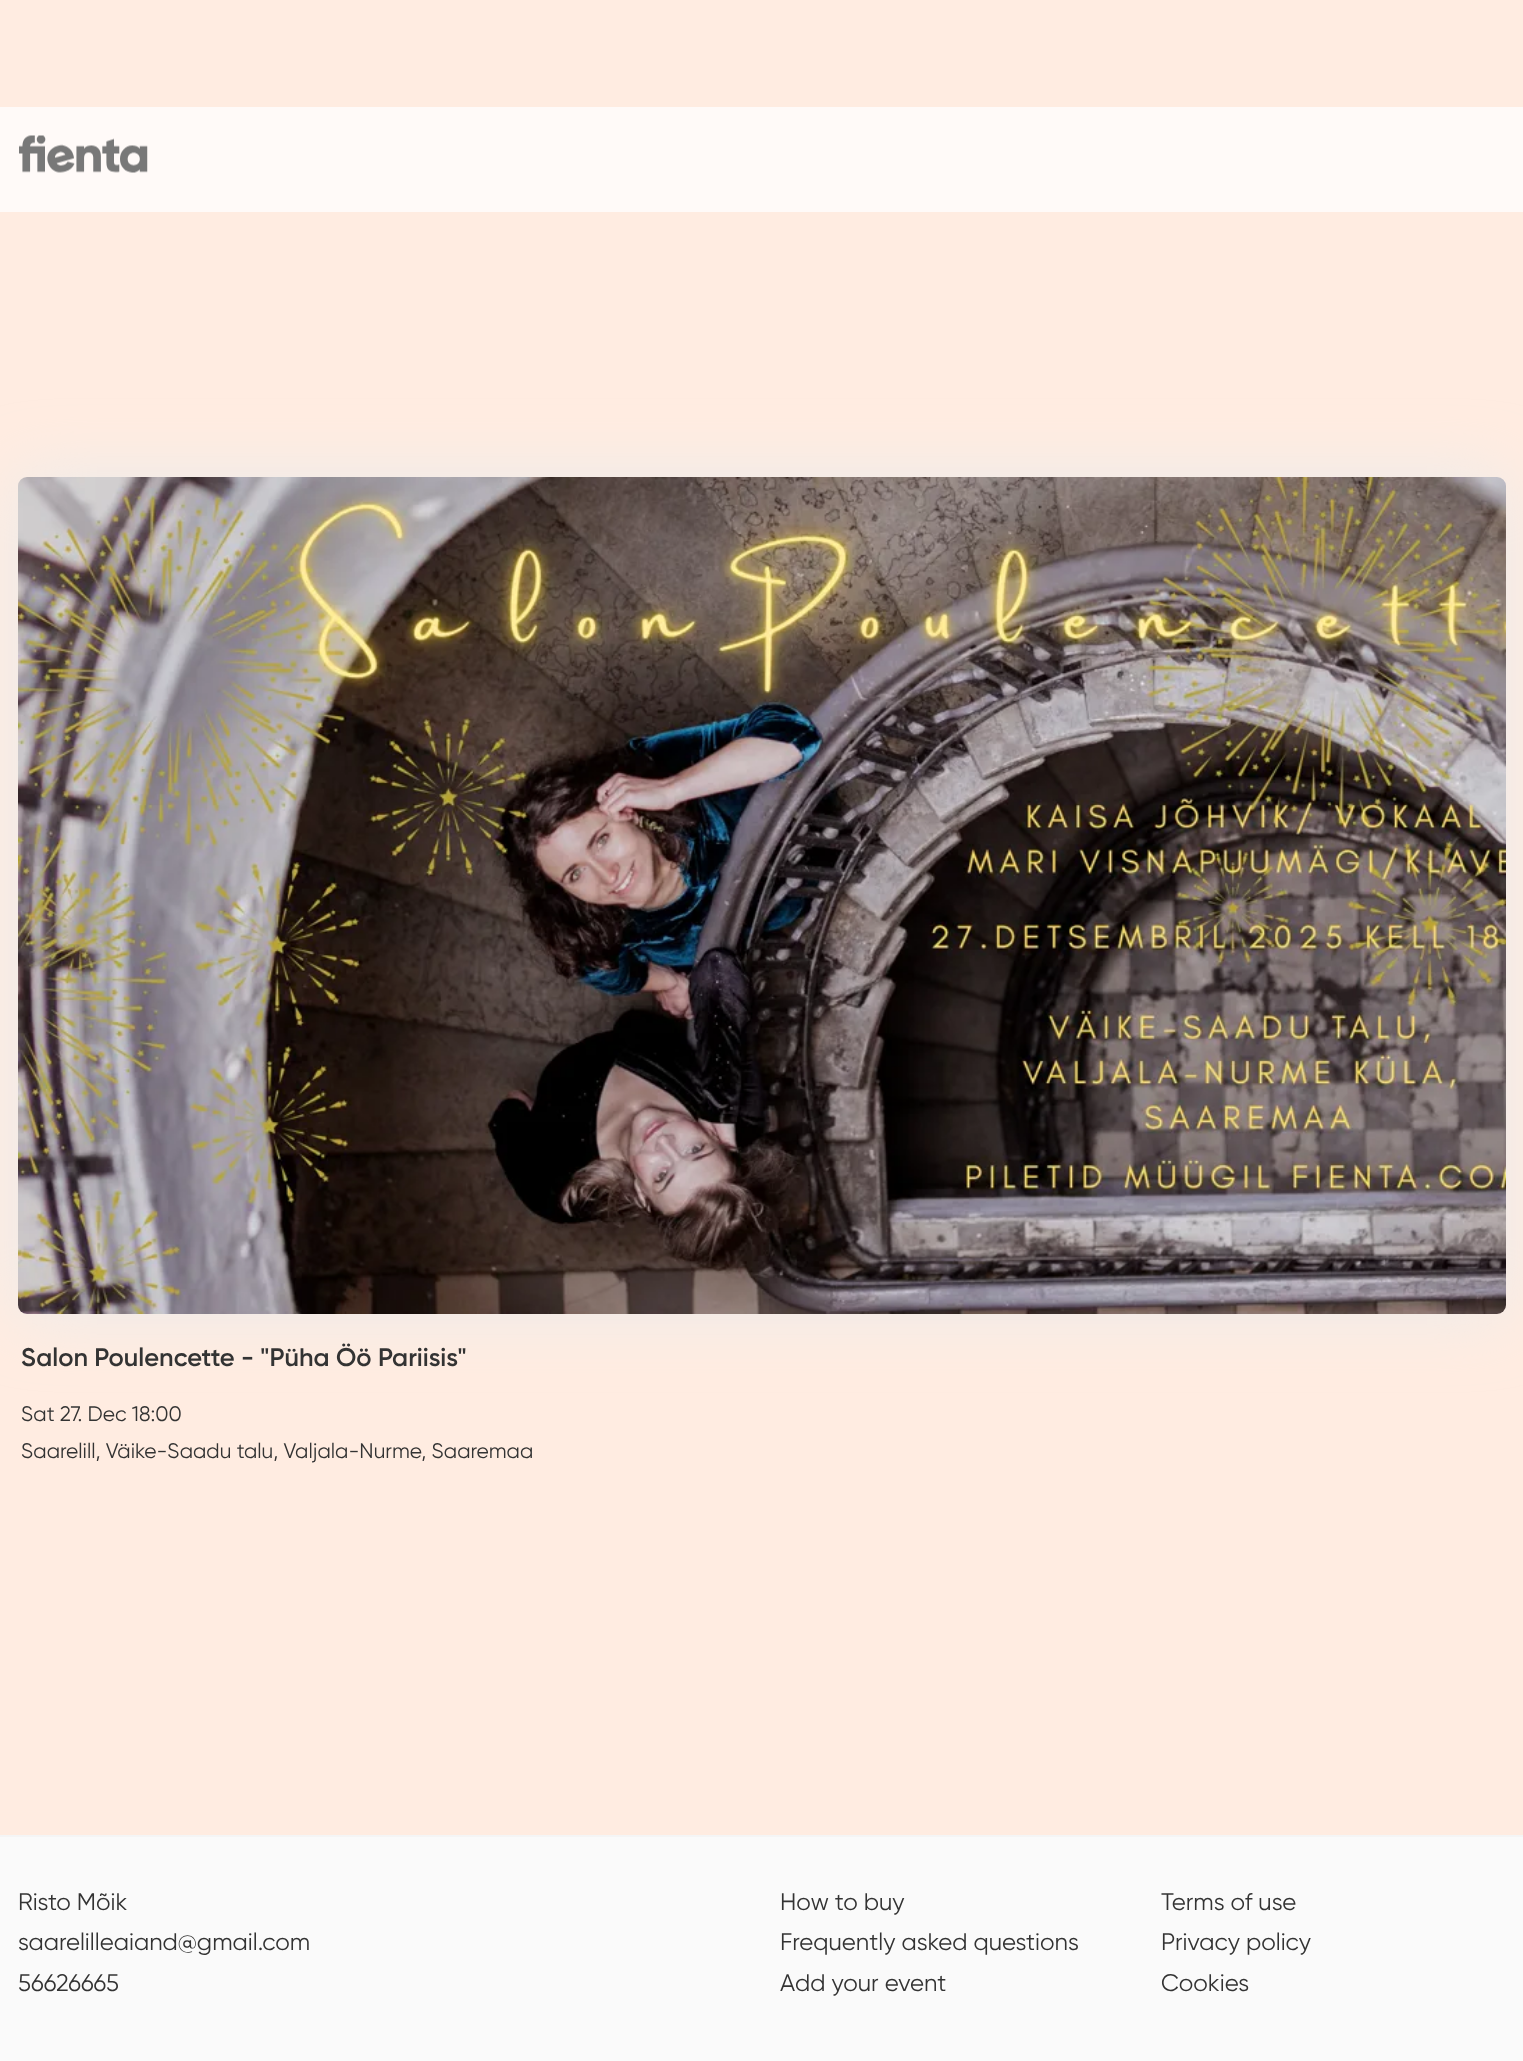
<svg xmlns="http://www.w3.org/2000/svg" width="1523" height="2061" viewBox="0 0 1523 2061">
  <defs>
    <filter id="blur1" x="-50%" y="-200%" width="200%" height="500%"><feGaussianBlur stdDeviation="33"/></filter>
  </defs>
  <rect width="100%" height="100%" fill="#ffece1"/>
  <rect x="0" y="107" width="1523" height="105" fill="#fffaf8"/>
  <image x="19" y="135" width="129" height="38" href="img1.png"/>
  <rect x="18" y="477" width="1488" height="837" rx="9" fill="#ebebeb" filter="url(#blur1)"/>
  <image x="18" y="477" width="1488" height="837" href="img2.png"/>
  <text x="21" y="1366" font-family="Gilroy" font-size="25.5" font-weight="600" fill="#333333">Salon Poulencette - "Püha Öö Pariisis"</text>
  <text x="21" y="1421" font-family="Gilroy" font-size="21" fill="#333333">Sat 27. Dec 18:00</text>
  <text x="21" y="1458" font-family="Gilroy" font-size="21" fill="#333333">Saarelill, Väike-Saadu talu, Valjala-Nurme, Saaremaa</text>
  <rect x="0" y="1837" width="1523" height="224" fill="#fafafa"/>
  <rect x="0" y="1835" width="1523" height="2" fill="#f5f5f5"/>
  <text x="18" y="1910" font-family="Gilroy" font-size="24" fill="#333333">Risto Mõik</text>
  <text x="18" y="1950" font-family="Gilroy" font-size="24" fill="#333333">saarelilleaiand@gmail.com</text>
  <text x="18" y="1991" font-family="Gilroy" font-size="24" fill="#333333">56626665</text>
  <text x="780" y="1910" font-family="Gilroy" font-size="24" fill="#333333">How to buy</text>
  <text x="780" y="1950" font-family="Gilroy" font-size="24" fill="#333333">Frequently asked questions</text>
  <text x="780" y="1991" font-family="Gilroy" font-size="24" fill="#333333">Add your event</text>
  <text x="1161" y="1910" font-family="Gilroy" font-size="24" fill="#333333">Terms of use</text>
  <text x="1161" y="1950" font-family="Gilroy" font-size="24" fill="#333333">Privacy policy</text>
  <text x="1161" y="1991" font-family="Gilroy" font-size="24" fill="#333333">Cookies</text>
</svg>
